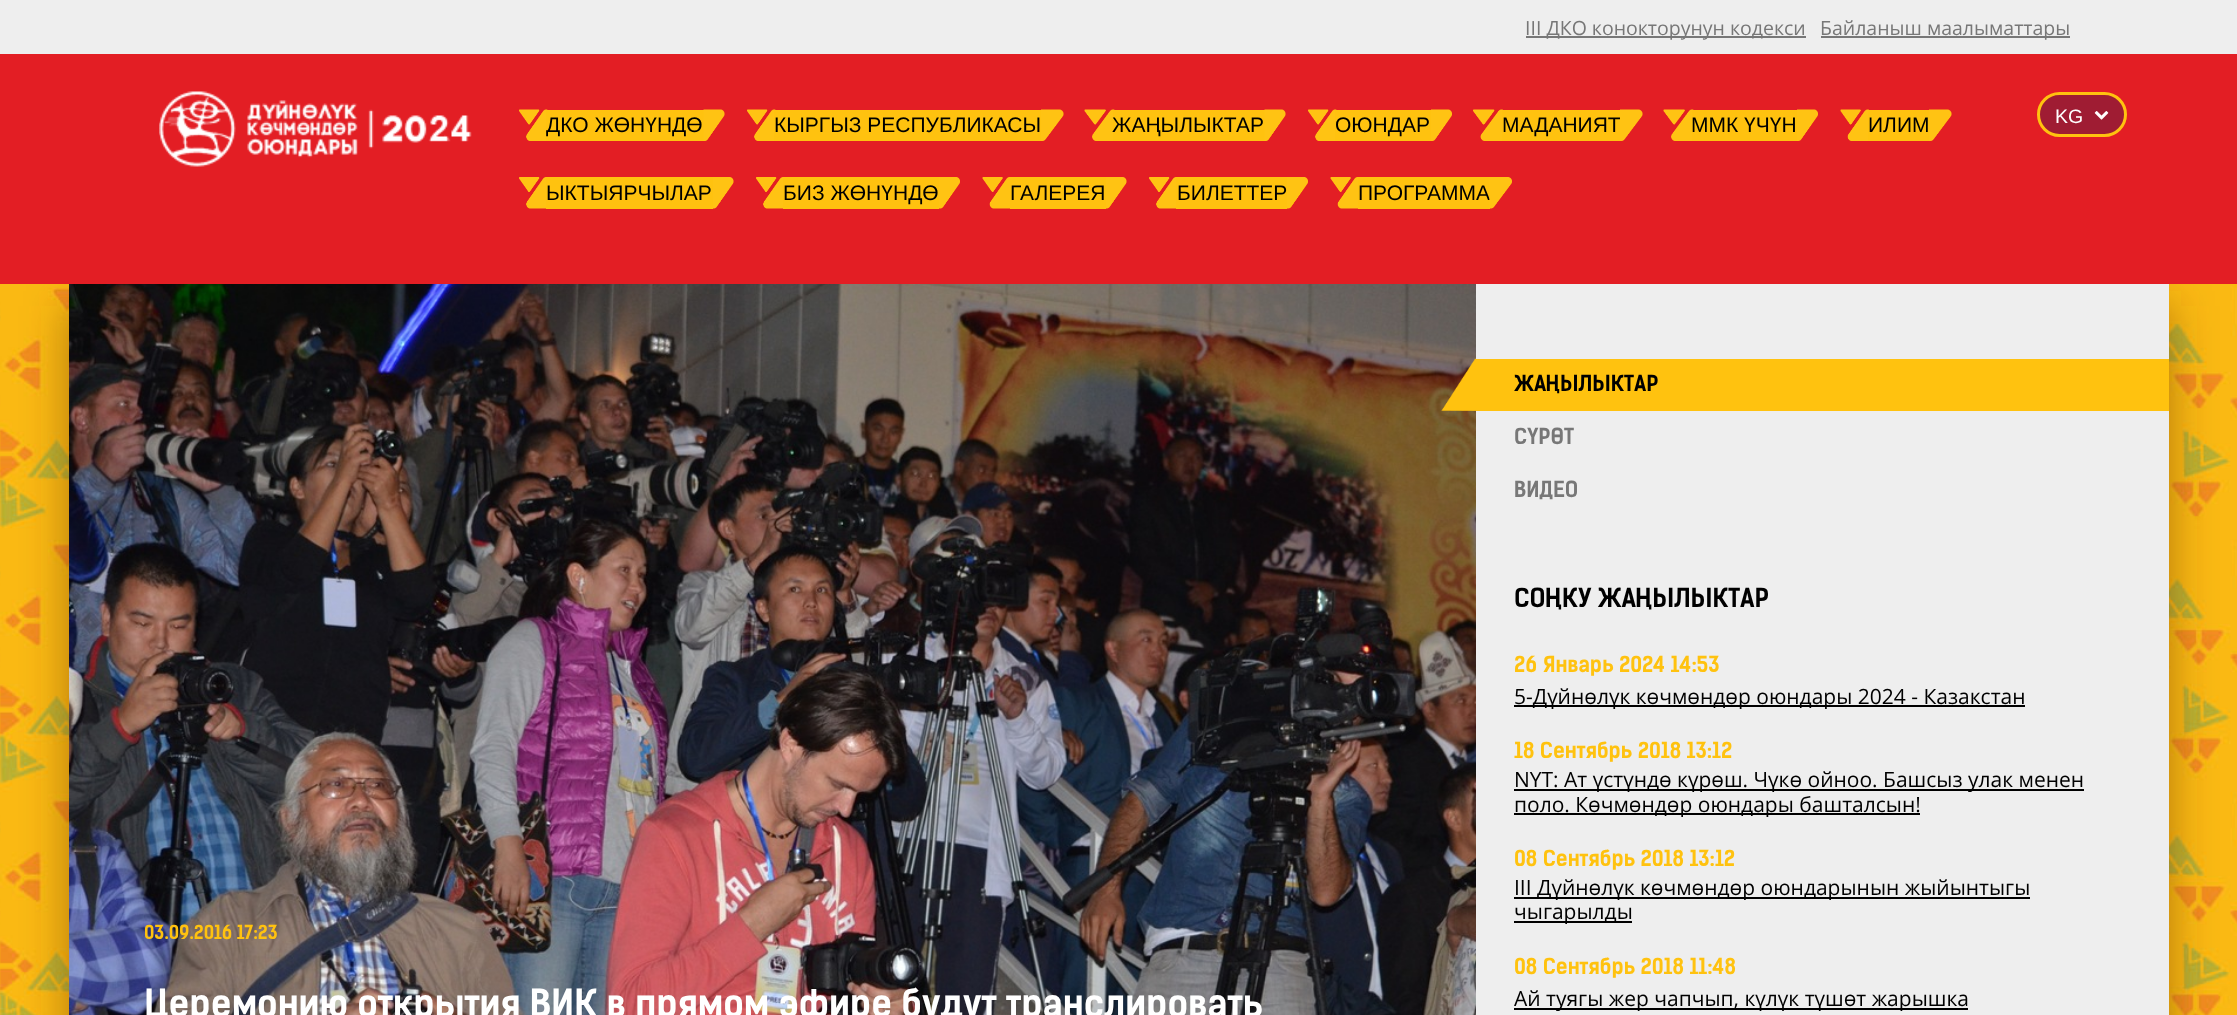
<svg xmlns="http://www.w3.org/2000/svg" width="2237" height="1015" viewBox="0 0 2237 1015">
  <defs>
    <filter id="blur1" x="-50%" y="-200%" width="200%" height="500%"><feGaussianBlur stdDeviation="22.5"/></filter>
  </defs>
  <rect width="100%" height="100%" fill="#ffffff"/>
  <image x="0" y="284" width="2237" height="731" href="img1.png"/>
  <rect x="0" y="0" width="2237" height="54" fill="#eeeeee"/>
  <rect x="1526" y="36" width="280" height="2" fill="#777777"/>
  <text x="1525" y="35" font-family="Open Sans" font-size="19.5" fill="#777777">III ДКО конокторунун кодекси</text>
  <rect x="1821" y="36" width="249" height="2" fill="#777777"/>
  <text x="1820" y="35" font-family="Open Sans" font-size="19.5" fill="#777777">Байланыш маалыматтары</text>
  <rect x="69" y="306" width="2100" height="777" fill="#673800" fill-opacity="0.5" filter="url(#blur1)"/>
  <rect x="0" y="54" width="2237" height="230" fill="#e31e24"/>
  <image x="159" y="91" width="313" height="76" href="img2.png"/>
  <image x="519" y="109" width="29" height="32" href="img3.png"/>
  <rect x="546" y="110" width="158" height="31" fill="#ffc20f"/>
  <text x="546" y="132" font-family="Liberation Sans" font-size="21" fill="#000000">ДКО ЖӨНҮНДӨ</text>
  <image x="703" y="109" width="22" height="32" href="img4.png"/>
  <image x="747" y="109" width="29" height="32" href="img3.png"/>
  <rect x="774" y="110" width="267" height="31" fill="#ffc20f"/>
  <text x="774" y="132" font-family="Liberation Sans" font-size="21" fill="#000000">КЫРГЫЗ РЕСПУБЛИКАСЫ</text>
  <image x="1041" y="109" width="23" height="32" href="img5.png"/>
  <image x="1084" y="109" width="31" height="32" href="img6.png"/>
  <rect x="1113" y="110" width="152" height="31" fill="#ffc20f"/>
  <text x="1112" y="132" font-family="Liberation Sans" font-size="21" fill="#000000">ЖАҢЫЛЫКТАР</text>
  <image x="1264" y="109" width="22" height="32" href="img4.png"/>
  <image x="1308" y="109" width="29" height="32" href="img3.png"/>
  <rect x="1335" y="110" width="96" height="31" fill="#ffc20f"/>
  <text x="1335" y="132" font-family="Liberation Sans" font-size="21" fill="#000000">ОЮНДАР</text>
  <image x="1431" y="109" width="21" height="32" href="img7.png"/>
  <image x="1473" y="109" width="30" height="32" href="img8.png"/>
  <rect x="1502" y="110" width="118" height="31" fill="#ffc20f"/>
  <text x="1502" y="132" font-family="Liberation Sans" font-size="21" fill="#000000">МАДАНИЯТ</text>
  <image x="1620" y="109" width="23" height="32" href="img5.png"/>
  <image x="1663" y="109" width="31" height="32" href="img6.png"/>
  <rect x="1692" y="110" width="105" height="31" fill="#ffc20f"/>
  <text x="1691" y="132" font-family="Liberation Sans" font-size="21" fill="#000000">ММК ҮЧҮН</text>
  <image x="1797" y="109" width="21" height="32" href="img7.png"/>
  <image x="1840" y="109" width="29" height="32" href="img9.png"/>
  <rect x="1868" y="110" width="61" height="31" fill="#ffc20f"/>
  <text x="1868" y="132" font-family="Liberation Sans" font-size="21" fill="#000000">ИЛИМ</text>
  <image x="1929" y="109" width="23" height="32" href="img5.png"/>
  <image x="519" y="177" width="27" height="32" href="img10.png"/>
  <rect x="546" y="177" width="167" height="32" fill="#ffc20f"/>
  <text x="546" y="200" font-family="Liberation Sans" font-size="21" fill="#000000">ЫКТЫЯРЧЫЛАР</text>
  <image x="713" y="177" width="21" height="32" href="img11.png"/>
  <image x="756" y="177" width="27" height="32" href="img10.png"/>
  <rect x="783" y="177" width="156" height="32" fill="#ffc20f"/>
  <text x="783" y="200" font-family="Liberation Sans" font-size="21" fill="#000000">БИЗ ЖӨНҮНДӨ</text>
  <image x="939" y="177" width="21" height="32" href="img12.png"/>
  <image x="982" y="177" width="28" height="32" href="img13.png"/>
  <rect x="1010" y="177" width="96" height="32" fill="#ffc20f"/>
  <text x="1010" y="200" font-family="Liberation Sans" font-size="21" fill="#000000">ГАЛЕРЕЯ</text>
  <image x="1106" y="177" width="21" height="32" href="img11.png"/>
  <image x="1149" y="177" width="27" height="32" href="img10.png"/>
  <rect x="1176" y="177" width="111" height="32" fill="#ffc20f"/>
  <text x="1177" y="200" font-family="Liberation Sans" font-size="21" fill="#000000">БИЛЕТТЕР</text>
  <image x="1287" y="177" width="21" height="32" href="img12.png"/>
  <image x="1330" y="177" width="28" height="32" href="img13.png"/>
  <rect x="1358" y="177" width="132" height="32" fill="#ffc20f"/>
  <text x="1358" y="200" font-family="Liberation Sans" font-size="21" fill="#000000">ПРОГРАММА</text>
  <image x="1489" y="177" width="23" height="32" href="img14.png"/>
  <rect x="2038.5" y="93.5" width="87" height="42" rx="21" fill="#9f1c33" stroke="#ffc20f" stroke-width="3"/>
  <text x="2055" y="123" font-family="Liberation Sans" font-size="19.5" fill="#ffffff">KG</text>
  <image x="2094" y="111" width="15" height="9" href="img15.png"/>
  <image x="69" y="284" width="1407" height="731" href="img16.png"/>
  <text x="144" y="939" font-family="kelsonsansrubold" font-size="21" font-weight="bold" fill="#ffc20f">03.09.2016 17:23</text>
  <text x="144" y="1017" font-family="kelsonsansrubold" font-size="42" font-weight="bold" fill="#ffffff">Церемонию открытия ВИК в прямом эфире будут транслировать</text>
  <rect x="1476" y="284" width="693" height="731" fill="#eeeeee"/>
  <rect x="1476" y="359" width="693" height="52" fill="#ffc20f"/>
  <image x="1441" y="358" width="35" height="53" href="img17.png"/>
  <text x="1514" y="391" font-family="kelsonsansrubold" font-size="24" font-weight="bold" fill="#000000">ЖАҢЫЛЫКТАР</text>
  <text x="1514" y="444" font-family="kelsonsansrubold" font-size="24" font-weight="bold" fill="#777777">СҮРӨТ</text>
  <text x="1514" y="497" font-family="kelsonsansrubold" font-size="24" font-weight="bold" fill="#777777">ВИДЕО</text>
  <text x="1514" y="607" font-family="kelsonsansrubold" font-size="28.5" font-weight="bold" fill="#000000">СОҢКУ ЖАҢЫЛЫКТАР</text>
  <text x="1514" y="672" font-family="kelsonsansrubold" font-size="24" font-weight="bold" fill="#ffc20f">26 Январь 2024 14:53</text>
  <rect x="1514" y="705" width="511" height="2" fill="#000000"/>
  <text x="1514" y="704" font-family="Open Sans" font-size="21" fill="#000000">5-Дүйнөлүк көчмөндөр оюндары 2024 - Казакстан</text>
  <text x="1514" y="758" font-family="kelsonsansrubold" font-size="24" font-weight="bold" fill="#ffc20f">18 Сентябрь 2018 13:12</text>
  <rect x="1514" y="789" width="570" height="2" fill="#000000"/>
  <text x="1514" y="787" font-family="Open Sans" font-size="21" fill="#000000">NYT: Ат үстүндө күрөш. Чүкө ойноо. Башсыз улак менен</text>
  <rect x="1514" y="813" width="406" height="2" fill="#000000"/>
  <text x="1514" y="812" font-family="Open Sans" font-size="21" fill="#000000">поло. Көчмөндөр оюндары башталсын!</text>
  <text x="1514" y="866" font-family="kelsonsansrubold" font-size="24" font-weight="bold" fill="#ffc20f">08 Сентябрь 2018 13:12</text>
  <rect x="1514" y="897" width="516" height="2" fill="#000000"/>
  <text x="1514" y="895" font-family="Open Sans" font-size="21" fill="#000000">III Дүйнөлүк көчмөндөр оюндарынын жыйынтыгы</text>
  <rect x="1514" y="921" width="118" height="2" fill="#000000"/>
  <text x="1514" y="919" font-family="Open Sans" font-size="21" fill="#000000">чыгарылды</text>
  <text x="1514" y="974" font-family="kelsonsansrubold" font-size="24" font-weight="bold" fill="#ffc20f">08 Сентябрь 2018 11:48</text>
  <rect x="1514" y="1008" width="454" height="2" fill="#000000"/>
  <text x="1514" y="1006" font-family="Open Sans" font-size="21" fill="#000000">Ай туягы жер чапчып, күлүк түшөт жарышка</text>
</svg>
